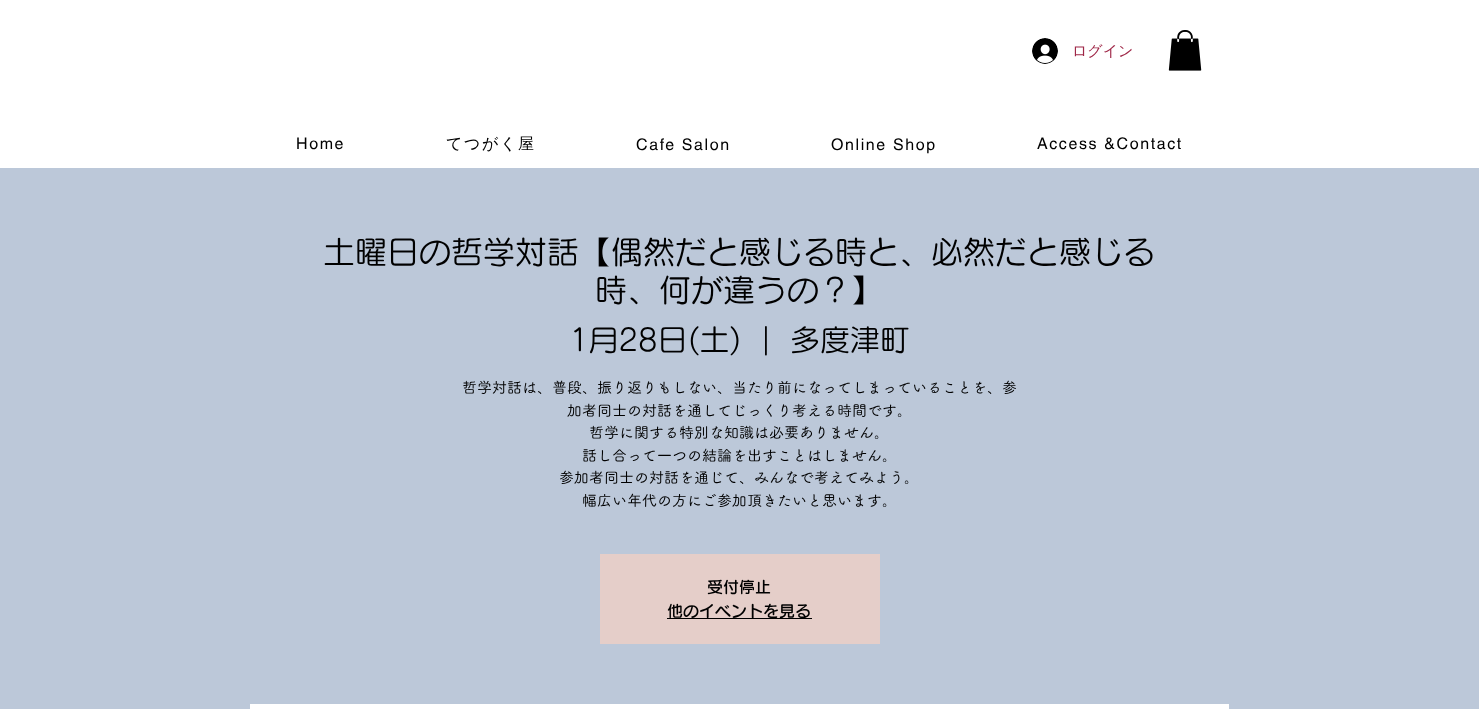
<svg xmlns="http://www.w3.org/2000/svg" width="1479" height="709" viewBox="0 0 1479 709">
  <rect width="100%" height="100%" fill="#ffffff"/>
  <image x="1032" y="38" width="26" height="26" href="img1.png"/>
  <text x="1072" y="56" font-family="WenQuanYi Zen Hei" font-size="15" font-weight="500" fill="#9f2747">ログイン</text>
  <image x="1168" y="30" width="34" height="41" href="img2.png"/>
  <text x="296" y="149" font-family="helvetica" font-size="16" letter-spacing="1.6" fill="#000000">Home</text>
  <text x="446" y="149" font-family="WenQuanYi Zen Hei" font-size="16" font-weight="500" letter-spacing="1.6" fill="#000000">てつがく屋</text>
  <text x="636" y="150" font-family="helvetica" font-size="16" letter-spacing="1.6" fill="#000000">Cafe Salon</text>
  <text x="831" y="150" font-family="helvetica" font-size="16" letter-spacing="1.6" fill="#000000">Online Shop</text>
  <text x="1037" y="149" font-family="helvetica" font-size="16" letter-spacing="1.6" fill="#000000">Access &amp;Contact</text>
  <rect x="0" y="168" width="1479" height="541" fill="#bcc8d9"/>
  <text x="323" y="264" font-family="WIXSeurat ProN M" font-size="32" font-weight="500" fill="#000000">土曜日の哲学対話【偶然だと感じる時と、必然だと感じる</text>
  <text x="595" y="302" font-family="WIXSeurat ProN M" font-size="32" font-weight="500" fill="#000000">時、何が違うの？】</text>
  <text x="569" y="351" font-family="WIXSeurat ProN M" font-size="30" font-weight="500" fill="#000000">1月28日(土)</text>
  <text x="761" y="351" font-family="WIXSeurat ProN M" font-size="30" font-weight="500" fill="#000000">|</text>
  <text x="790" y="351" font-family="WIXSeurat ProN M" font-size="30" font-weight="500" fill="#000000">多度津町</text>
  <text x="462" y="393" font-family="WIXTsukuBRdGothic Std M" font-size="15" font-weight="500" fill="#000000">哲学対話は、普段、振り返りもしない、当たり前になってしまっていることを、参</text>
  <text x="567" y="416" font-family="WIXTsukuBRdGothic Std M" font-size="15" font-weight="500" fill="#000000">加者同士の対話を通してじっくり考える時間です。</text>
  <text x="589" y="438" font-family="WIXTsukuBRdGothic Std M" font-size="15" font-weight="500" fill="#000000">哲学に関する特別な知識は必要ありません。</text>
  <text x="582" y="461" font-family="WIXTsukuBRdGothic Std M" font-size="15" font-weight="500" fill="#000000">話し合って一つの結論を出すことはしません。</text>
  <text x="559" y="483" font-family="WIXTsukuBRdGothic Std M" font-size="15" font-weight="500" fill="#000000">参加者同士の対話を通じて、みんなで考えてみよう。</text>
  <text x="582" y="506" font-family="WIXTsukuBRdGothic Std M" font-size="15" font-weight="500" fill="#000000">幅広い年代の方にご参加頂きたいと思います。</text>
  <rect x="600" y="554" width="280" height="90" fill="#e5cec9"/>
  <text x="707" y="593" font-family="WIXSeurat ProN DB" font-size="16" font-weight="600" fill="#000000">受付停止</text>
  <rect x="667" y="618" width="145" height="1" fill="#000000"/>
  <text x="667" y="617" font-family="WIXSeurat ProN DB" font-size="16" font-weight="600" fill="#000000">他のイベントを見る</text>
  <rect x="250" y="704" width="979" height="5" fill="#ffffff"/>
</svg>
